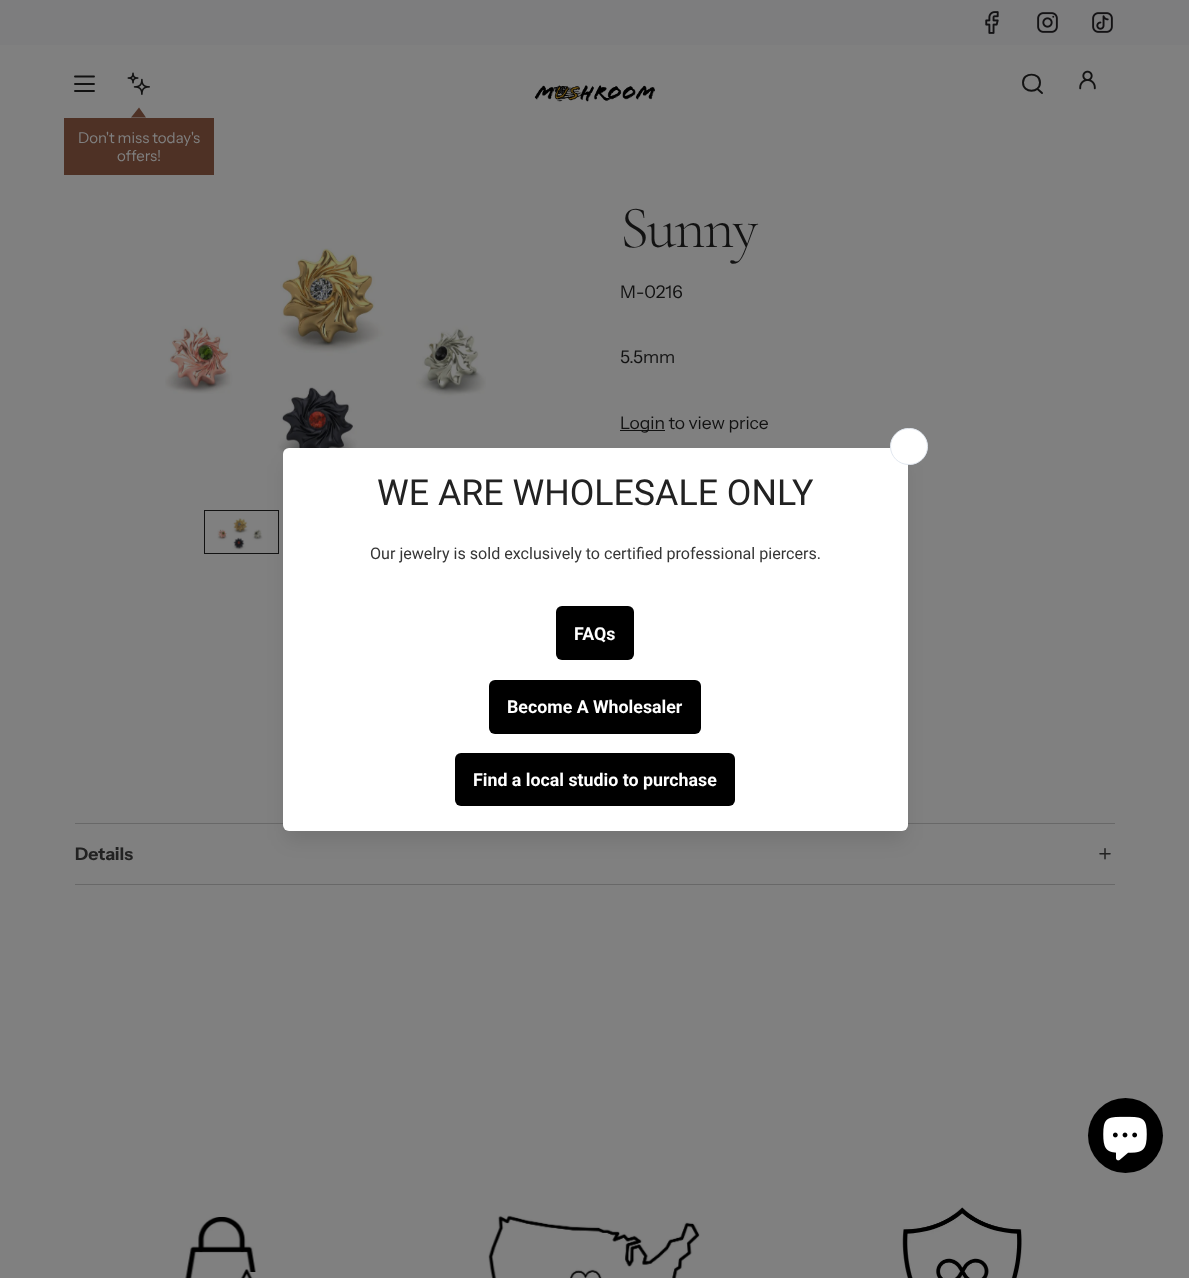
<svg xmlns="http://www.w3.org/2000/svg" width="1189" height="1278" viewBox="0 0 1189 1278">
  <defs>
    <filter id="blur1" x="-50%" y="-200%" width="200%" height="500%"><feGaussianBlur stdDeviation="9.5"/></filter>
    <clipPath id="clip1"><rect x="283" y="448" width="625" height="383"/></clipPath>
    <filter id="blur2" x="-50%" y="-200%" width="200%" height="500%"><feGaussianBlur stdDeviation="12.5"/></filter>
  </defs>
  <rect width="100%" height="100%" fill="#808080"/>
  <rect x="0" y="0" width="1189" height="45" fill="#7d7d7e"/>
  <image x="985" y="11" width="14" height="23" href="img1.png"/>
  <image x="1037" y="12" width="21" height="21" href="img2.png"/>
  <image x="1092" y="12" width="21" height="21" href="img3.png"/>
  <image x="534" y="85" width="121" height="17" href="img4.png"/>
  <path d="M1037.5 89L1042 93M1023 82.5C1023 93.5 1040 93.5 1040 82.5C1040 72 1023 72 1023 82.5Z" fill="none" stroke="#121212" stroke-width="1.9" stroke-linecap="round" stroke-linejoin="round"/>
  <image x="1079" y="70" width="17" height="20" href="img5.png"/>
  <path d="M75 76.5H94M75 84H94M75 91H94" fill="none" stroke="#121212" stroke-width="1.9" stroke-linecap="round" stroke-linejoin="round"/>
  <image x="127" y="72" width="23" height="23" href="img6.png"/>
  <rect x="64" y="118" width="150" height="57" fill="#4e3125"/>
  <path d="M146 117.5H131L139 107.5Z" fill="#4e3125"/>
  <text x="78" y="143" font-family="Instrument Sans" font-size="15" fill="#808080">Don't miss today's</text>
  <text x="117" y="161" font-family="Instrument Sans" font-size="15" fill="#808080">offers!</text>
  <image x="165" y="248" width="321" height="218" href="img7.png"/>
  <rect x="204.5" y="510.5" width="74" height="43" fill="none" stroke="#121212"/>
  <image x="217" y="518" width="46" height="32" href="img8.png"/>
  <text x="620" y="247" font-family="Cormorant" font-size="60" font-weight="300" letter-spacing="-2" fill="#121212">Sunny</text>
  <text x="620" y="298" font-family="Instrument Sans" font-size="17.5" fill="#121212">M-0216</text>
  <text x="620" y="363" font-family="Instrument Sans" font-size="17.5" fill="#121212">5.5mm</text>
  <rect x="620" y="430" width="45" height="1" fill="#121212"/>
  <text x="620" y="429" font-family="Instrument Sans" font-size="17.5" fill="#121212">Login to view price</text>
  <rect x="75" y="823" width="1040" height="1" fill="#686868"/>
  <rect x="75" y="884" width="1040" height="1" fill="#686868"/>
  <text x="75" y="860" font-family="Instrument Sans" font-size="17.5" font-weight="bold" fill="#222222">Details</text>
  <image x="1099" y="848" width="12" height="12" href="img9.png"/>
  <rect x="286" y="464" width="618" height="376" rx="2.5" fill="#000000" fill-opacity="0.1" filter="url(#blur1)"/>
  <g clip-path="url(#clip1)">
    <rect x="286" y="451" width="618" height="377" rx="2.5" fill="#000000" fill-opacity="0.12" filter="url(#blur2)"/>
  </g>
  <rect x="283" y="448" width="625" height="383" rx="6" fill="#ffffff"/>
  <rect x="890.5" y="428.5" width="37" height="36" rx="18" fill="#ffffff" stroke="#e2e8f0"/>
  <text x="377" y="505" font-family="Roboto" font-size="35.75" fill="#222222">WE ARE WHOLESALE ONLY</text>
  <text x="370" y="559" font-family="Roboto" font-size="16.1" fill="#363636">Our jewelry is sold exclusively to certified professional piercers.</text>
  <rect x="556" y="606" width="78" height="54" rx="6" fill="#000000"/>
  <text x="574" y="640" font-family="Roboto" font-size="17.8" font-weight="bold" fill="#ffffff">FAQs</text>
  <rect x="489" y="680" width="212" height="54" rx="6" fill="#000000"/>
  <text x="507" y="713" font-family="Roboto" font-size="17.8" font-weight="bold" fill="#ffffff">Become A Wholesaler</text>
  <rect x="455" y="753" width="280" height="53" rx="6" fill="#000000"/>
  <text x="473" y="786" font-family="Roboto" font-size="17.8" font-weight="bold" fill="#ffffff">Find a local studio to purchase</text>
  <circle cx="1125.5" cy="1135.5" r="37.5" fill="#000000"/>
  <image x="1103" y="1116" width="44" height="45" href="img10.png"/>
  <image x="185" y="1216" width="71" height="62" href="img11.png"/>
  <image x="488" y="1215" width="212" height="63" href="img12.png"/>
  <image x="902" y="1207" width="120" height="71" href="img13.png"/>
</svg>
